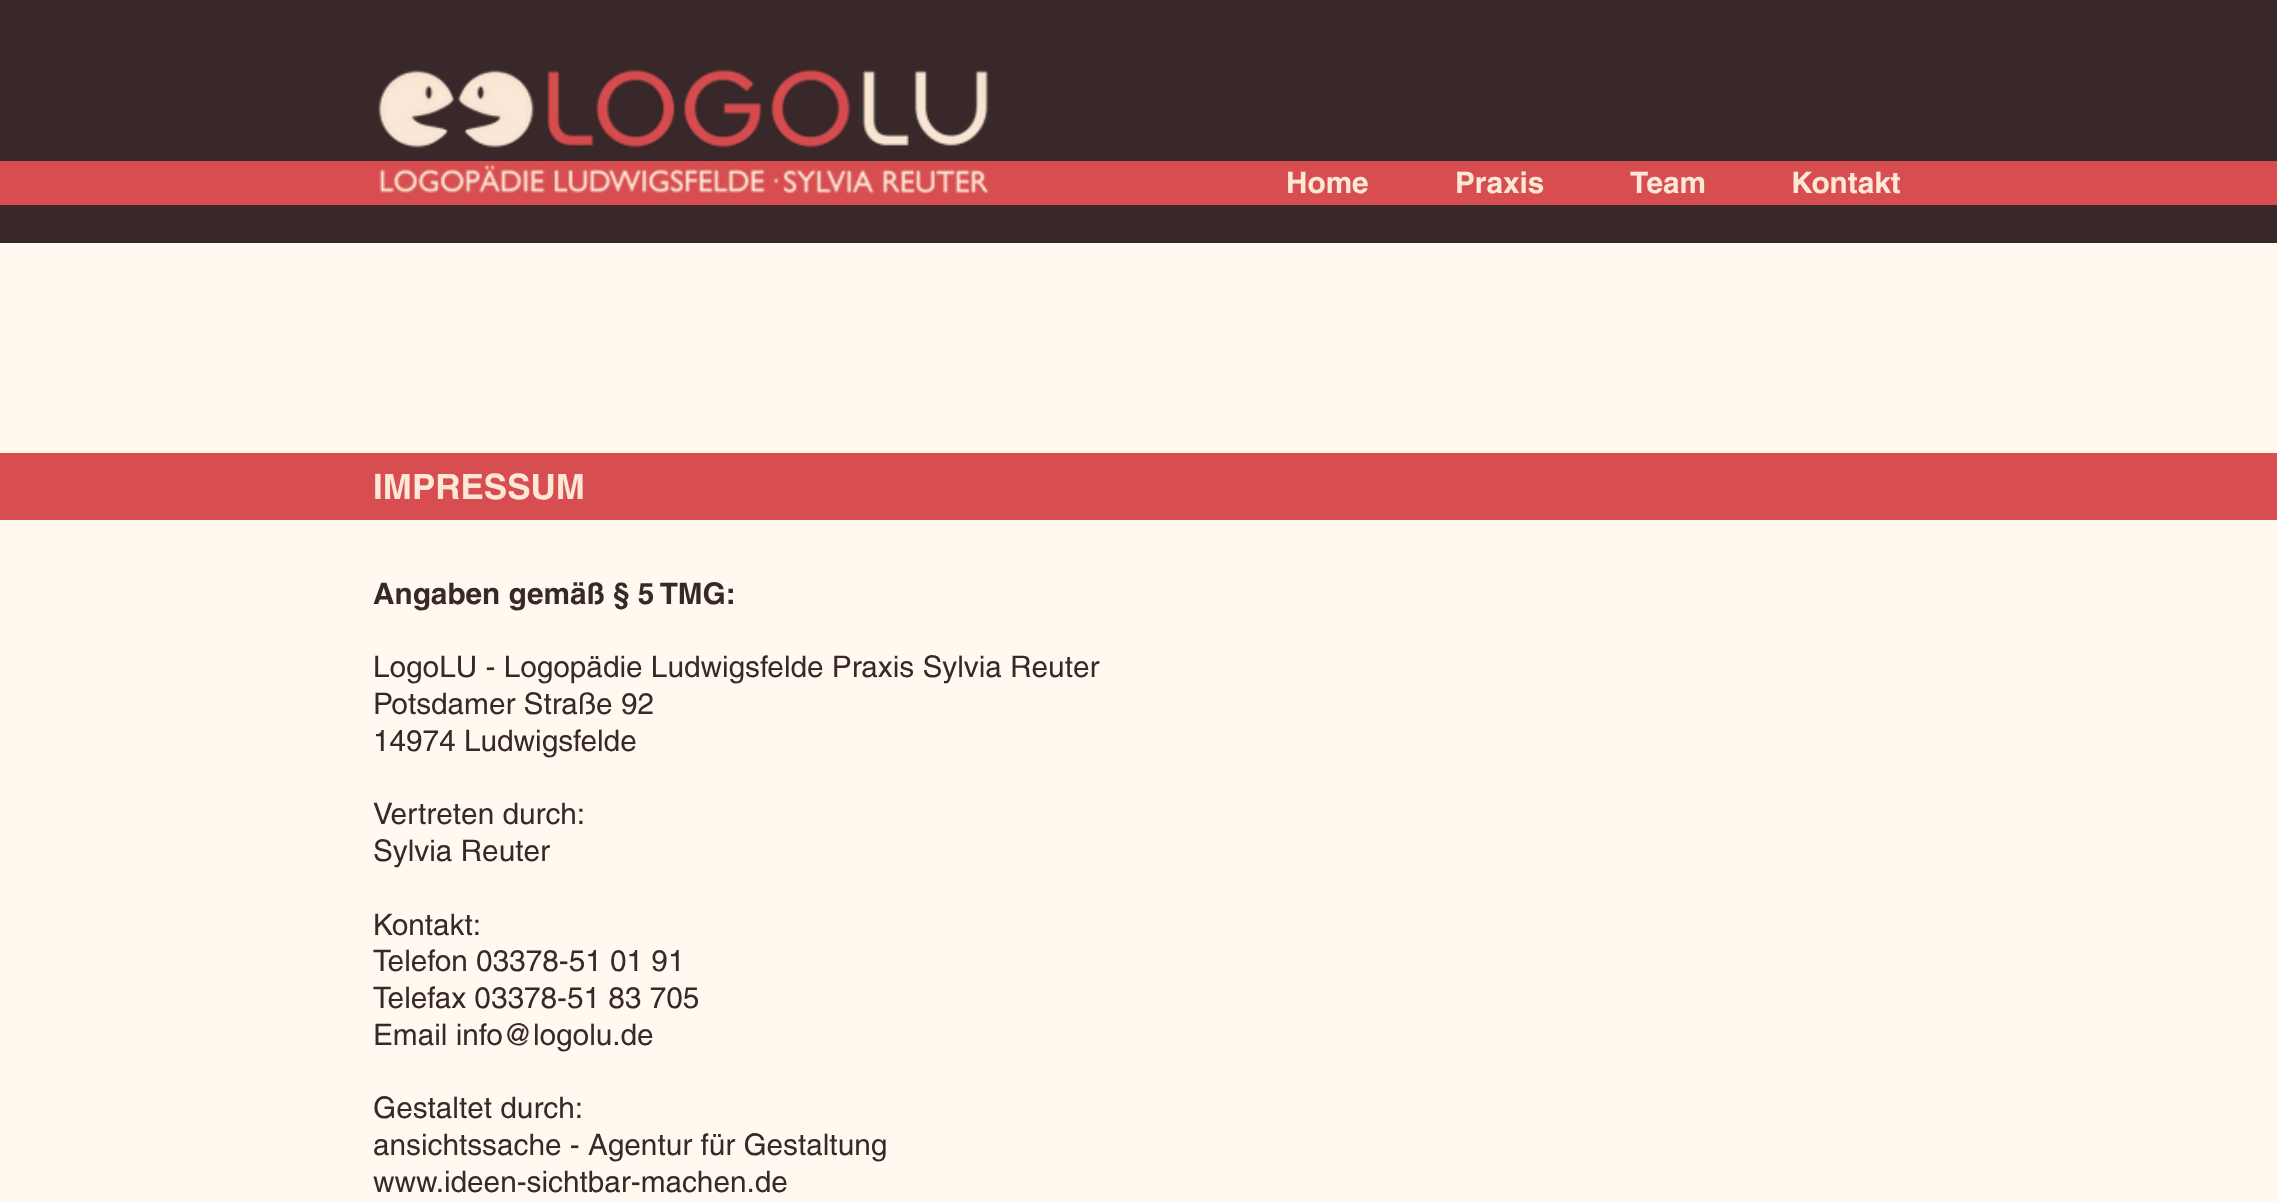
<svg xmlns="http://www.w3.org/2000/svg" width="2277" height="1202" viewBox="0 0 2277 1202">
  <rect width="100%" height="100%" fill="#fff9f0"/>
  <rect x="0" y="0" width="2277" height="243" fill="#382829"/>
  <rect x="0" y="161" width="2277" height="44" fill="#d84e50"/>
  <image x="377" y="69" width="612" height="126" href="img1.png"/>
  <text x="1286" y="193" font-family="helvetica" font-size="29.75" font-weight="bold" fill="#fde8d7">Home</text>
  <text x="1455" y="193" font-family="helvetica" font-size="29.75" font-weight="bold" fill="#fde8d7">Praxis</text>
  <text x="1630" y="193" font-family="helvetica" font-size="29.75" font-weight="bold" fill="#fde8d7">Team</text>
  <text x="1791" y="193" font-family="helvetica" font-size="29.75" font-weight="bold" fill="#fde8d7">Kontakt</text>
  <rect x="0" y="453" width="2277" height="67" fill="#d84e50"/>
  <text x="373" y="499" font-family="helvetica" font-size="35" font-weight="bold" fill="#fde8d7">IMPRESSUM</text>
  <text x="373" y="604" font-family="helvetica" font-size="29.75" font-weight="bold" fill="#382829">Angaben gemäß § 5 TMG:</text>
  <text x="373" y="677" font-family="helvetica" font-size="29.75" fill="#382829">LogoLU - Logopädie Ludwigsfelde Praxis Sylvia Reuter</text>
  <text x="373" y="714" font-family="helvetica" font-size="29.75" fill="#382829">Potsdamer Straße 92</text>
  <text x="373" y="751" font-family="helvetica" font-size="29.75" fill="#382829">14974 Ludwigsfelde</text>
  <text x="373" y="824" font-family="helvetica" font-size="29.75" fill="#382829">Vertreten durch:</text>
  <text x="373" y="861" font-family="helvetica" font-size="29.75" fill="#382829">Sylvia Reuter</text>
  <text x="373" y="935" font-family="helvetica" font-size="29.75" fill="#382829">Kontakt:</text>
  <text x="373" y="971" font-family="helvetica" font-size="29.75" fill="#382829">Telefon 03378-51 01 91</text>
  <text x="373" y="1008" font-family="helvetica" font-size="29.75" fill="#382829">Telefax 03378-51 83 705</text>
  <text x="373" y="1045" font-family="helvetica" font-size="29.75" fill="#382829">Email info@logolu.de</text>
  <text x="373" y="1118" font-family="helvetica" font-size="29.75" fill="#382829">Gestaltet durch:</text>
  <text x="373" y="1155" font-family="helvetica" font-size="29.75" fill="#382829">ansichtssache - Agentur für Gestaltung</text>
  <text x="373" y="1192" font-family="helvetica" font-size="29.75" fill="#382829">www.ideen-sichtbar-machen.de</text>
</svg>
